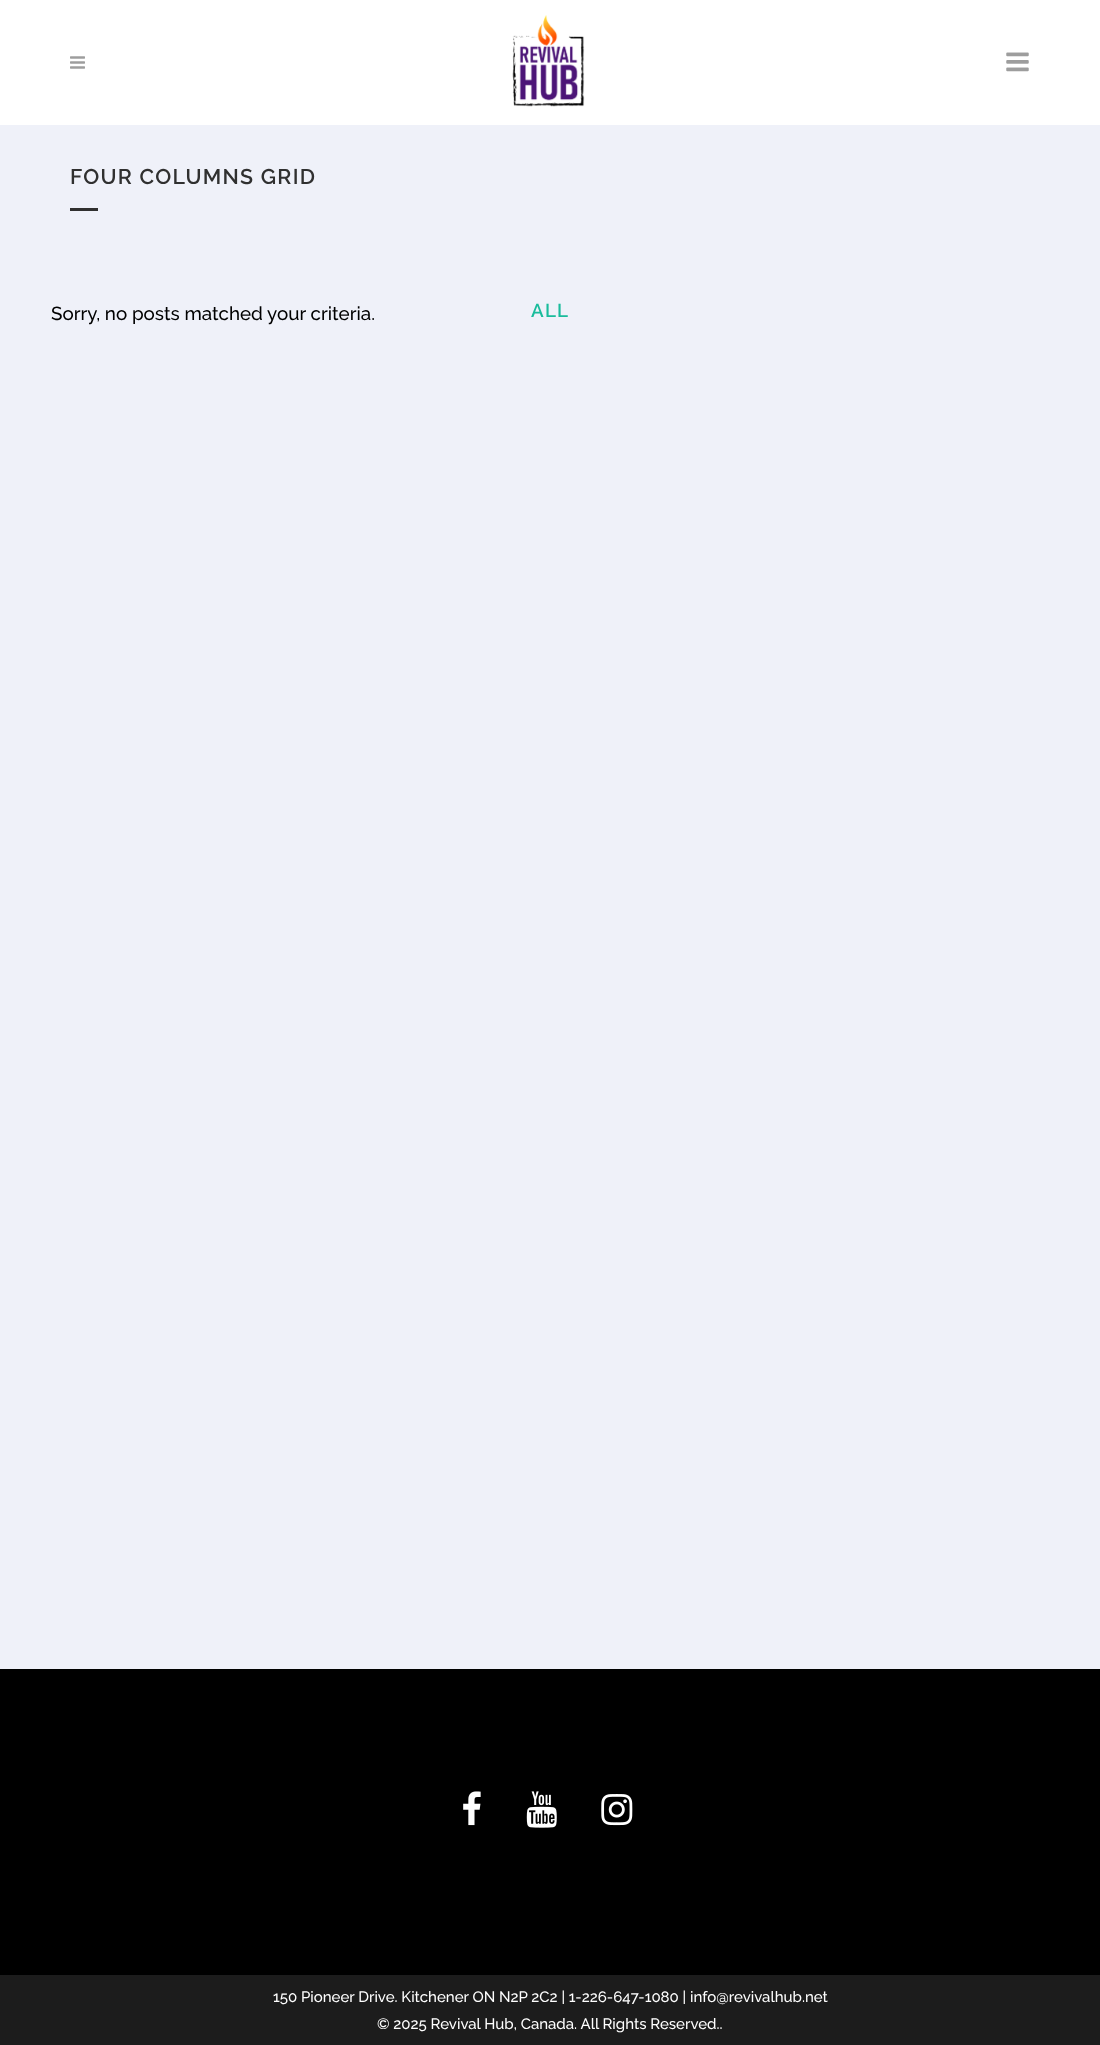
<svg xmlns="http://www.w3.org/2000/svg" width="1100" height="2045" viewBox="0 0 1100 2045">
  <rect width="100%" height="100%" fill="#eff1f9"/>
  <rect x="0" y="0" width="1100" height="125" fill="#ffffff"/>
  <image x="70" y="56" width="15" height="13" href="img1.png"/>
  <image x="512" y="15" width="73" height="92" href="img2.png"/>
  <image x="1006" y="52" width="23" height="20" href="img3.png"/>
  <text x="70" y="184" font-family="Raleway" font-size="21.25" font-weight="600" letter-spacing="1.25" fill="#303030">FOUR COLUMNS GRID</text>
  <rect x="70" y="208" width="28" height="3" fill="#303030"/>
  <text x="51" y="320" font-family="Raleway" font-size="18.75" font-weight="500" fill="#000000">Sorry, no posts matched your criteria.</text>
  <text x="531" y="317" font-family="Raleway" font-size="18.75" font-weight="600" letter-spacing="1.25" fill="#1abc9c">ALL</text>
  <rect x="0" y="1669" width="1100" height="306" fill="#000000"/>
  <image x="463" y="1791" width="18" height="35" href="img4.png"/>
  <image x="526" y="1791" width="31" height="37" href="img5.png"/>
  <image x="601" y="1794" width="32" height="32" href="img6.png"/>
  <rect x="0" y="1975" width="1100" height="70" fill="#1c1c1c"/>
  <text x="273" y="2002" font-family="Raleway" font-size="15" font-weight="500" fill="#ffffff">150 Pioneer Drive. Kitchener ON N2P 2C2 | 1-226-647-1080 | info@revivalhub.net</text>
  <text x="377" y="2029" font-family="Raleway" font-size="15" font-weight="500" fill="#ffffff">© 2025 Revival Hub, Canada. All Rights Reserved..</text>
</svg>
